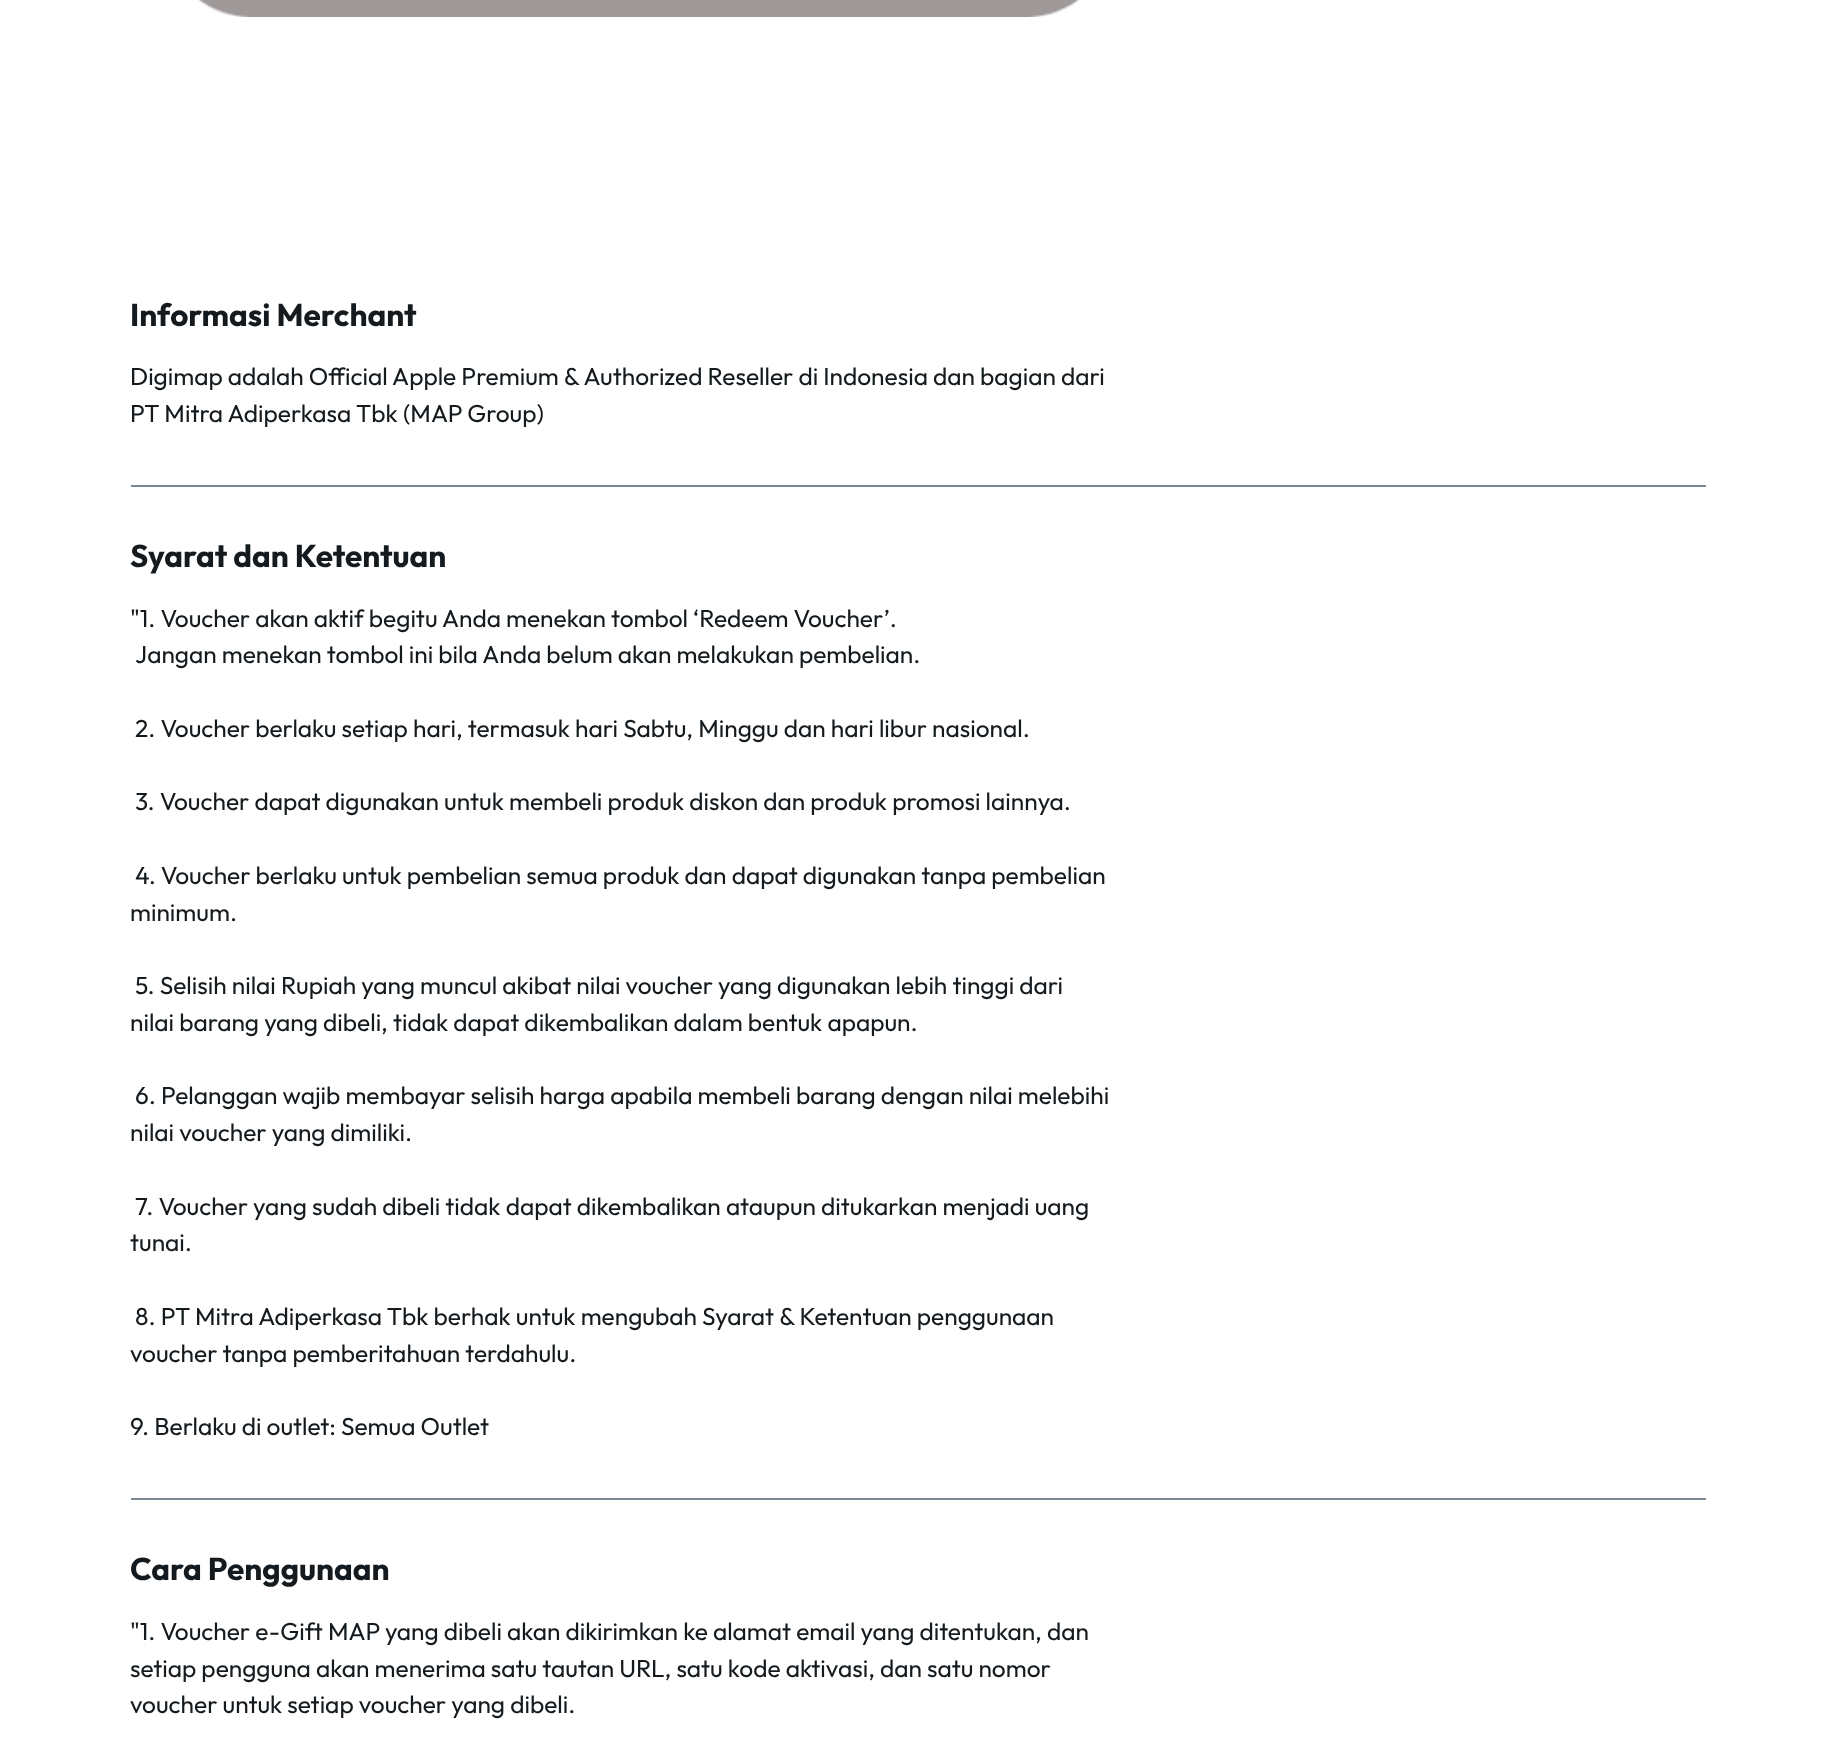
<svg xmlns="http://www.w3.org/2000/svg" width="1835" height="1741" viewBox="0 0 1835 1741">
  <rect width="100%" height="100%" fill="#ffffff"/>
  <image x="198" y="0" width="882" height="17" href="img1.png"/>
  <rect x="131" y="485" width="1575" height="2" fill="#7b8893"/>
  <text x="130" y="326" font-family="Outfit" font-size="31.5" font-weight="bold" fill="#141a1e">Informasi Merchant</text>
  <text x="130" y="385" font-family="Outfit" font-size="24.5" fill="#141a1e">Digimap adalah Official Apple Premium &amp; Authorized Reseller di Indonesia dan bagian dari</text>
  <text x="130" y="422" font-family="Outfit" font-size="24.5" fill="#141a1e">PT Mitra Adiperkasa Tbk (MAP Group)</text>
  <rect x="131" y="1498" width="1575" height="2" fill="#7b8893"/>
  <text x="130" y="567" font-family="Outfit" font-size="31.5" font-weight="bold" fill="#141a1e">Syarat dan Ketentuan</text>
  <text x="130" y="627" font-family="Outfit" font-size="24.5" fill="#141a1e">"1. Voucher akan aktif begitu Anda menekan tombol ‘Redeem Voucher’.</text>
  <text x="135" y="663" font-family="Outfit" font-size="24.5" fill="#141a1e">Jangan menekan tombol ini bila Anda belum akan melakukan pembelian.</text>
  <text x="135" y="737" font-family="Outfit" font-size="24.5" fill="#141a1e">2. Voucher berlaku setiap hari, termasuk hari Sabtu, Minggu dan hari libur nasional.</text>
  <text x="135" y="810" font-family="Outfit" font-size="24.5" fill="#141a1e">3. Voucher dapat digunakan untuk membeli produk diskon dan produk promosi lainnya.</text>
  <text x="135" y="884" font-family="Outfit" font-size="24.5" fill="#141a1e">4. Voucher berlaku untuk pembelian semua produk dan dapat digunakan tanpa pembelian</text>
  <text x="130" y="921" font-family="Outfit" font-size="24.5" fill="#141a1e">minimum.</text>
  <text x="135" y="994" font-family="Outfit" font-size="24.5" fill="#141a1e">5. Selisih nilai Rupiah yang muncul akibat nilai voucher yang digunakan lebih tinggi dari</text>
  <text x="130" y="1031" font-family="Outfit" font-size="24.5" fill="#141a1e">nilai barang yang dibeli, tidak dapat dikembalikan dalam bentuk apapun.</text>
  <text x="135" y="1104" font-family="Outfit" font-size="24.5" fill="#141a1e">6. Pelanggan wajib membayar selisih harga apabila membeli barang dengan nilai melebihi</text>
  <text x="130" y="1141" font-family="Outfit" font-size="24.5" fill="#141a1e">nilai voucher yang dimiliki.</text>
  <text x="135" y="1215" font-family="Outfit" font-size="24.5" fill="#141a1e">7. Voucher yang sudah dibeli tidak dapat dikembalikan ataupun ditukarkan menjadi uang</text>
  <text x="130" y="1251" font-family="Outfit" font-size="24.5" fill="#141a1e">tunai.</text>
  <text x="135" y="1325" font-family="Outfit" font-size="24.5" fill="#141a1e">8. PT Mitra Adiperkasa Tbk berhak untuk mengubah Syarat &amp; Ketentuan penggunaan</text>
  <text x="130" y="1362" font-family="Outfit" font-size="24.5" fill="#141a1e">voucher tanpa pemberitahuan terdahulu.</text>
  <text x="130" y="1435" font-family="Outfit" font-size="24.5" fill="#141a1e">9. Berlaku di outlet: Semua Outlet</text>
  <text x="130" y="1580" font-family="Outfit" font-size="31.5" font-weight="bold" fill="#141a1e">Cara Penggunaan</text>
  <text x="130" y="1640" font-family="Outfit" font-size="24.5" fill="#141a1e">"1. Voucher e-Gift MAP yang dibeli akan dikirimkan ke alamat email yang ditentukan, dan</text>
  <text x="130" y="1677" font-family="Outfit" font-size="24.5" fill="#141a1e">setiap pengguna akan menerima satu tautan URL, satu kode aktivasi, dan satu nomor</text>
  <text x="130" y="1713" font-family="Outfit" font-size="24.5" fill="#141a1e">voucher untuk setiap voucher yang dibeli.</text>
</svg>
